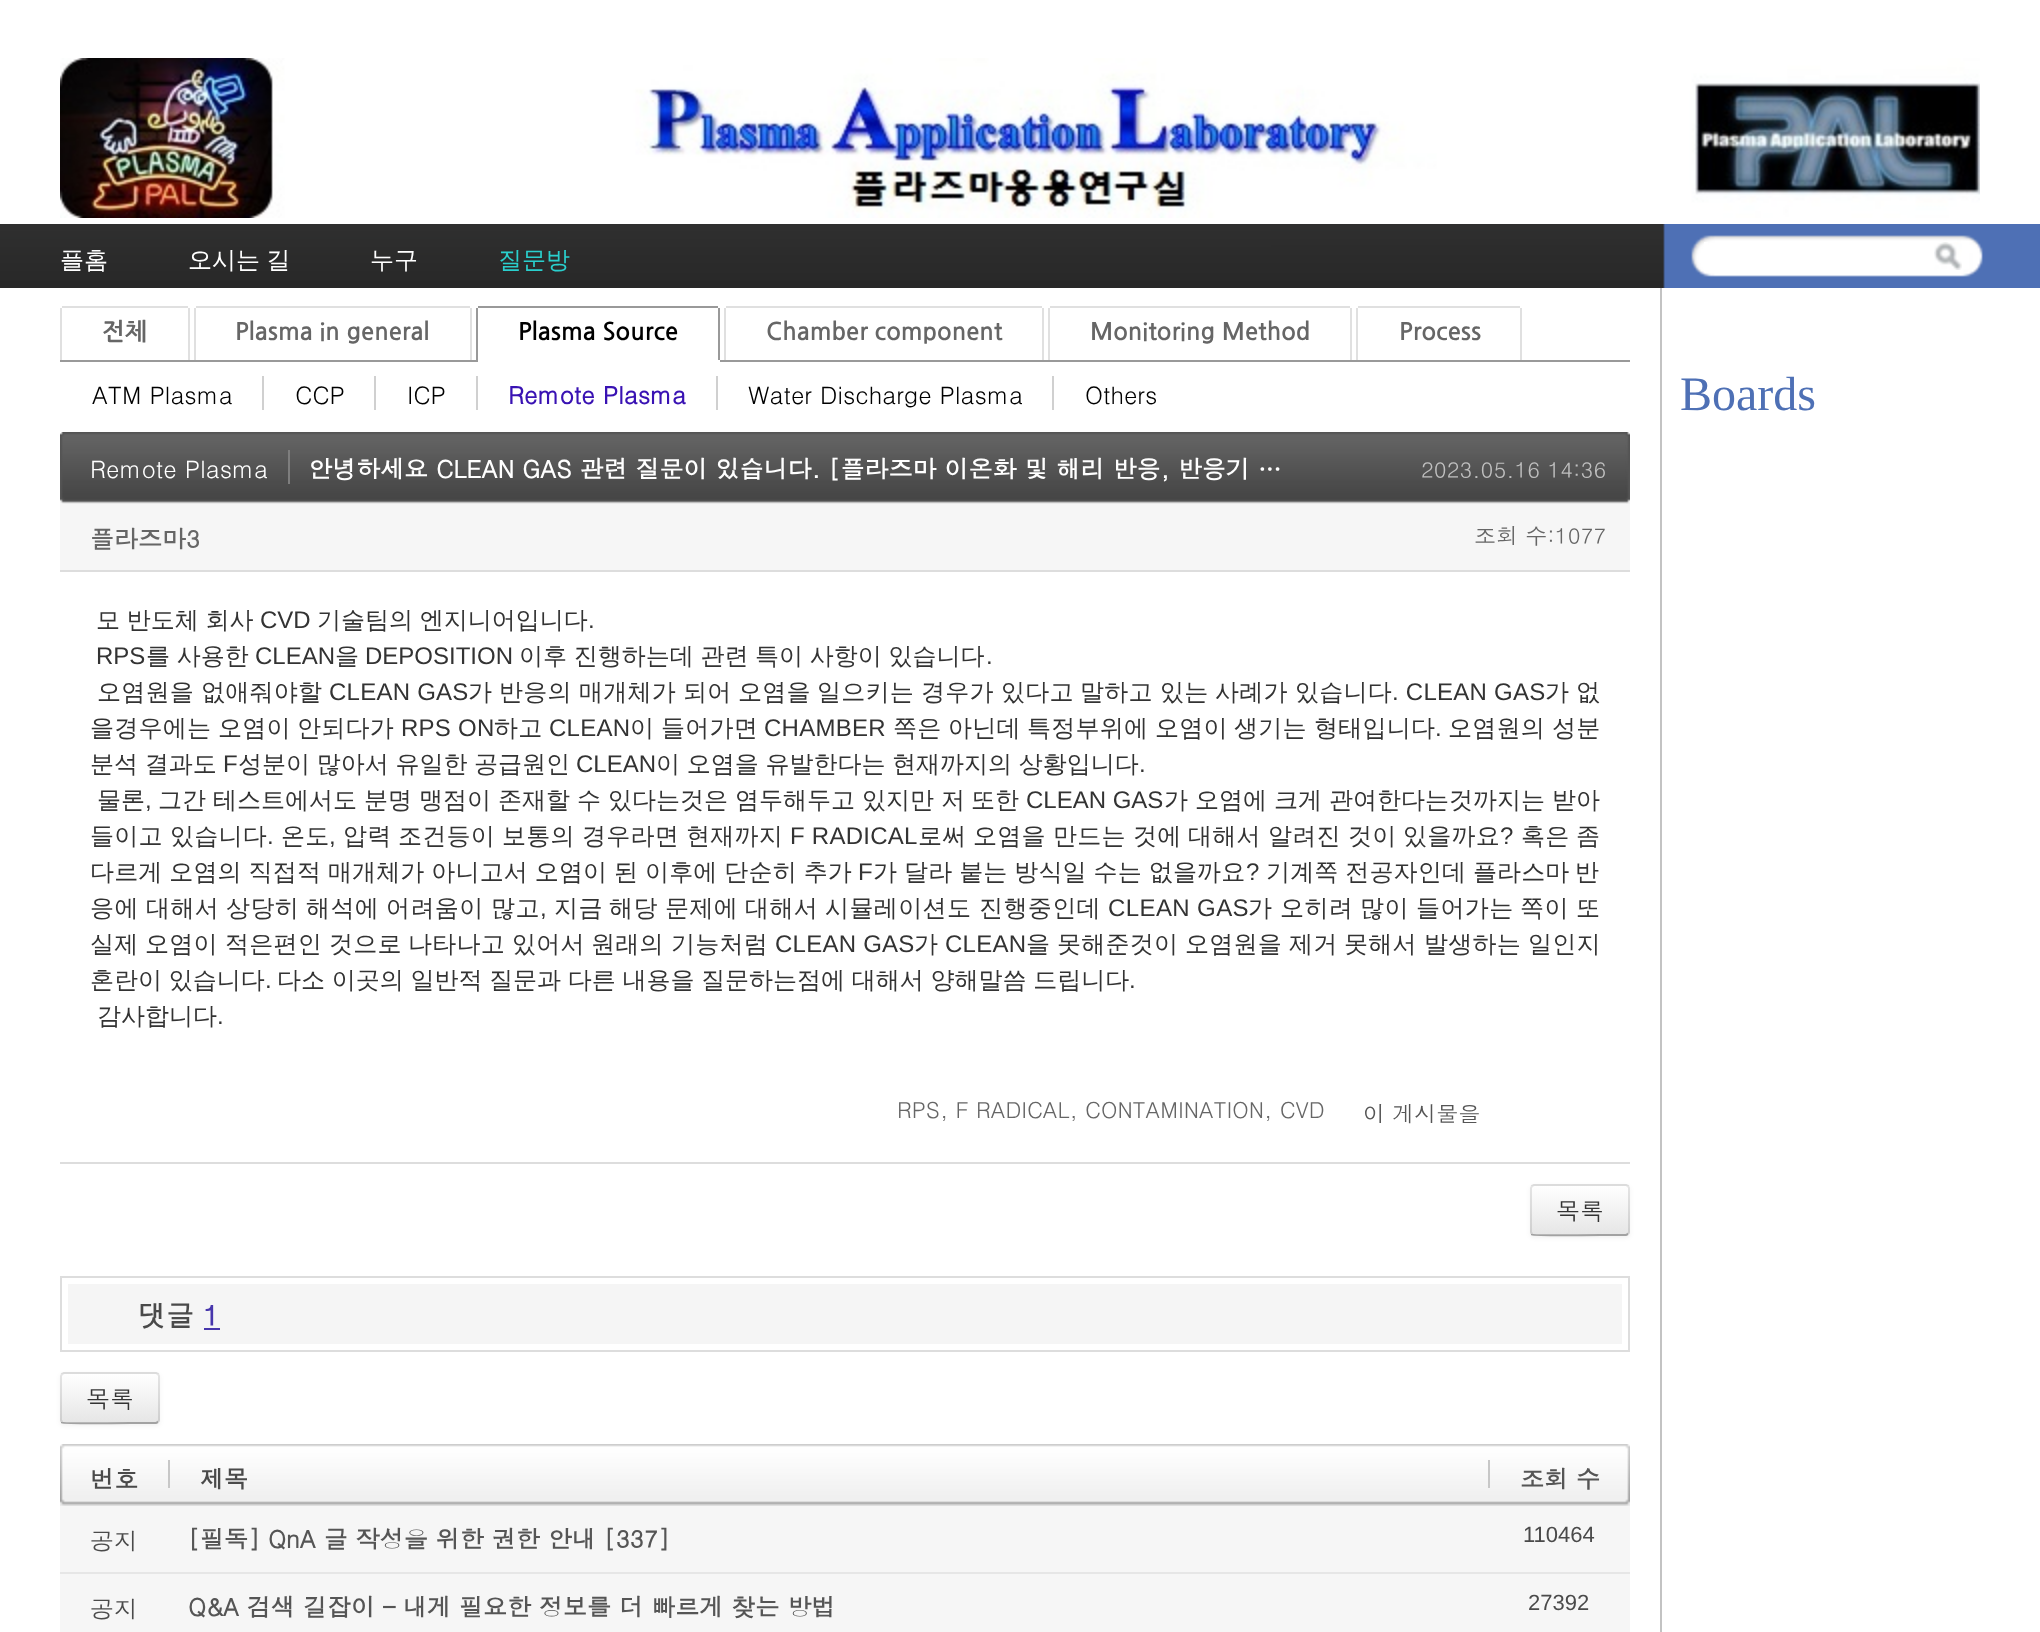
<svg xmlns="http://www.w3.org/2000/svg" width="2040" height="1632" viewBox="0 0 2040 1632">
  <defs>
    <filter id="blur1" x="-50%" y="-200%" width="200%" height="500%"><feGaussianBlur stdDeviation="2"/></filter>
    <clipPath id="clip1"><rect x="1530" y="1184" width="100" height="52" rx="4"/></clipPath>
    <linearGradient id="g1" gradientUnits="userSpaceOnUse" x1="1580" y1="1186" x2="1580" y2="1234"><stop offset="0" stop-color="#ffffff"/><stop offset="1" stop-color="#e6e6e6"/></linearGradient>
    <clipPath id="clip2"><rect x="60" y="1372" width="100" height="52" rx="4"/></clipPath>
    <linearGradient id="g2" gradientUnits="userSpaceOnUse" x1="110" y1="1374" x2="110" y2="1422"><stop offset="0" stop-color="#ffffff"/><stop offset="1" stop-color="#e6e6e6"/></linearGradient>
  </defs>
  <rect width="100%" height="100%" fill="#ffffff"/>
  <image x="0" y="224" width="2040" height="64" href="img1.png"/>
  <image x="60" y="58" width="1920" height="160" href="img2.png"/>
  <text x="60" y="268" font-family="WenQuanYi Zen Hei" font-size="24" font-weight="500" fill="#ffffff">플홈</text>
  <text x="188" y="268" word-spacing="-1" font-family="WenQuanYi Zen Hei" font-size="24" font-weight="500" fill="#ffffff">오시는 길</text>
  <text x="370" y="268" font-family="WenQuanYi Zen Hei" font-size="24" font-weight="500" fill="#ffffff">누구</text>
  <text x="498" y="268" font-family="WenQuanYi Zen Hei" font-size="24" font-weight="500" fill="#2acfcd">질문방</text>
  <rect x="1704" y="242" width="4" height="30" fill="#ffffff"/>
  <image x="1934" y="242" width="28" height="28" href="img3.png"/>
  <rect x="1660" y="288" width="2" height="1344" fill="#c3c3c3"/>
  <rect x="60" y="360" width="1570" height="2" fill="#999999"/>
  <rect x="188" y="308" width="2" height="52" fill="#e0e0e0"/>
  <rect x="60" y="308" width="2" height="52" fill="#e0e0e0"/>
  <rect x="62" y="306" width="126" height="2" fill="#e0e0e0"/>
  <text x="102" y="340" font-family="NanumGothic" font-size="24" font-weight="bold" fill="#666666">전체</text>
  <rect x="718" y="308" width="2" height="54" fill="#999999"/>
  <rect x="476" y="360" width="244" height="2" fill="#ffffff"/>
  <rect x="476" y="308" width="2" height="54" fill="#999999"/>
  <rect x="478" y="306" width="240" height="2" fill="#999999"/>
  <text x="518" y="340" font-family="NanumGothic" font-size="24" font-weight="bold" fill="#000000">Plasma Source</text>
  <text x="92" y="404" font-family="Dotum" font-size="24" fill="#000000">ATM Plasma</text>
  <rect x="262" y="376" width="2" height="34" fill="#d0d0d0"/>
  <text x="295" y="404" font-family="Dotum" font-size="24" fill="#000000">CCP</text>
  <rect x="374" y="376" width="2" height="34" fill="#d0d0d0"/>
  <text x="407" y="404" font-family="Dotum" font-size="24" fill="#000000">ICP</text>
  <rect x="476" y="376" width="2" height="34" fill="#d0d0d0"/>
  <text x="508" y="404" font-family="Dotum" font-size="24" font-weight="bold" fill="#3912b3">Remote Plasma</text>
  <rect x="716" y="376" width="2" height="34" fill="#d0d0d0"/>
  <text x="748" y="404" font-family="Dotum" font-size="24" fill="#000000">Water Discharge Plasma</text>
  <rect x="1052" y="376" width="2" height="34" fill="#d0d0d0"/>
  <text x="1085" y="404" font-family="Dotum" font-size="24" fill="#000000">Others</text>
  <rect x="470" y="308" width="2" height="52" fill="#e0e0e0"/>
  <rect x="194" y="308" width="2" height="52" fill="#e0e0e0"/>
  <rect x="196" y="306" width="274" height="2" fill="#e0e0e0"/>
  <text x="235" y="340" font-family="NanumGothic" font-size="24" font-weight="bold" fill="#666666">Plasma in general</text>
  <rect x="1042" y="308" width="2" height="52" fill="#e0e0e0"/>
  <rect x="724" y="308" width="2" height="52" fill="#e0e0e0"/>
  <rect x="726" y="306" width="316" height="2" fill="#e0e0e0"/>
  <text x="766" y="340" font-family="NanumGothic" font-size="24" font-weight="bold" fill="#666666">Chamber component</text>
  <rect x="1350" y="308" width="2" height="52" fill="#e0e0e0"/>
  <rect x="1048" y="308" width="2" height="52" fill="#e0e0e0"/>
  <rect x="1050" y="306" width="300" height="2" fill="#e0e0e0"/>
  <text x="1090" y="340" font-family="NanumGothic" font-size="24" font-weight="bold" fill="#666666">Monitoring Method</text>
  <rect x="1520" y="308" width="2" height="52" fill="#e0e0e0"/>
  <rect x="1356" y="308" width="2" height="52" fill="#e0e0e0"/>
  <rect x="1358" y="306" width="162" height="2" fill="#e0e0e0"/>
  <text x="1399" y="340" font-family="NanumGothic" font-size="24" font-weight="bold" fill="#666666">Process</text>
  <image x="60" y="432" width="1570" height="72" href="img4.png"/>
  <image x="1625" y="432" width="5" height="72" href="img5.png"/>
  <text x="90" y="478" font-family="Dotum" font-size="24" fill="#ffffff">Remote Plasma</text>
  <rect x="288" y="450" width="2" height="34" fill="#7e7e7e"/>
  <text x="308" y="478" font-family="Dotum" font-size="24" font-weight="bold" fill="#ffffff">안녕하세요 CLEAN GAS 관련 질문이 있습니다. [플라즈마 이온화 및 해리 반응, 반응기 …</text>
  <text x="1421" y="478" font-family="Dotum" font-size="22" fill="#bfbfbf">2023.05.16 14:36</text>
  <rect x="60" y="504" width="1570" height="66" fill="#f6f6f6"/>
  <rect x="60" y="570" width="1570" height="2" fill="#dddddd"/>
  <text x="90" y="548" font-family="Dotum" font-size="24" font-weight="bold" fill="#666666">플라즈마3</text>
  <text x="1474" y="544" font-family="Dotum" font-size="22" fill="#666666">조회 수:1077</text>
  <text x="96" y="628" word-spacing="-0.5" font-family="WenQuanYi Zen Hei" font-size="24" font-weight="500" fill="#333333">모 반도체 회사</text>
  <text x="260" y="628" font-family="Liberation Sans" font-size="24" fill="#333333">CVD</text>
  <text x="317" y="628" word-spacing="-0.5" font-family="WenQuanYi Zen Hei" font-size="24" font-weight="500" fill="#333333">기술팀의 엔지니어입니다</text>
  <text x="588" y="628" font-family="Liberation Sans" font-size="24" fill="#333333">.</text>
  <text x="96" y="664" font-family="Liberation Sans" font-size="24" fill="#333333">RPS</text>
  <text x="146" y="664" word-spacing="-0.5" font-family="WenQuanYi Zen Hei" font-size="24" font-weight="500" fill="#333333">를 사용한</text>
  <text x="255" y="664" font-family="Liberation Sans" font-size="24" fill="#333333">CLEAN</text>
  <text x="335" y="664" font-family="WenQuanYi Zen Hei" font-size="24" font-weight="500" fill="#333333">을</text>
  <text x="365" y="664" font-family="Liberation Sans" font-size="24" fill="#333333">DEPOSITION</text>
  <text x="519" y="664" word-spacing="-0.5" font-family="WenQuanYi Zen Hei" font-size="24" font-weight="500" fill="#333333">이후 진행하는데 관련 특이 사항이 있습니다</text>
  <text x="986" y="664" font-family="Liberation Sans" font-size="24" fill="#333333">.</text>
  <text x="97" y="700" font-family="WenQuanYi Zen Hei" font-size="24" font-weight="500" letter-spacing="0.25" fill="#333333">오염원을</text>
  <text x="201" y="700" font-family="WenQuanYi Zen Hei" font-size="24" font-weight="500" letter-spacing="0.25" fill="#333333">없애줘야할</text>
  <text x="329" y="700" font-family="Liberation Sans" font-size="24" letter-spacing="0.25" fill="#333333">CLEAN GAS</text>
  <text x="468" y="700" font-family="WenQuanYi Zen Hei" font-size="24" font-weight="500" letter-spacing="0.25" fill="#333333">가</text>
  <text x="499" y="700" font-family="WenQuanYi Zen Hei" font-size="24" font-weight="500" letter-spacing="0.25" fill="#333333">반응의</text>
  <text x="579" y="700" font-family="WenQuanYi Zen Hei" font-size="24" font-weight="500" letter-spacing="0.25" fill="#333333">매개체가</text>
  <text x="683" y="700" font-family="WenQuanYi Zen Hei" font-size="24" font-weight="500" letter-spacing="0.25" fill="#333333">되어</text>
  <text x="738" y="700" font-family="WenQuanYi Zen Hei" font-size="24" font-weight="500" letter-spacing="0.25" fill="#333333">오염을</text>
  <text x="817" y="700" font-family="WenQuanYi Zen Hei" font-size="24" font-weight="500" letter-spacing="0.25" fill="#333333">일으키는</text>
  <text x="921" y="700" font-family="WenQuanYi Zen Hei" font-size="24" font-weight="500" letter-spacing="0.25" fill="#333333">경우가</text>
  <text x="1001" y="700" font-family="WenQuanYi Zen Hei" font-size="24" font-weight="500" letter-spacing="0.25" fill="#333333">있다고</text>
  <text x="1080" y="700" font-family="WenQuanYi Zen Hei" font-size="24" font-weight="500" letter-spacing="0.25" fill="#333333">말하고</text>
  <text x="1160" y="700" font-family="WenQuanYi Zen Hei" font-size="24" font-weight="500" letter-spacing="0.25" fill="#333333">있는</text>
  <text x="1215" y="700" font-family="WenQuanYi Zen Hei" font-size="24" font-weight="500" letter-spacing="0.25" fill="#333333">사례가</text>
  <text x="1295" y="700" font-family="WenQuanYi Zen Hei" font-size="24" font-weight="500" letter-spacing="0.25" fill="#333333">있습니다</text>
  <text x="1392" y="700" font-family="Liberation Sans" font-size="24" letter-spacing="0.25" fill="#333333">. CLEAN GAS</text>
  <text x="1545" y="700" font-family="WenQuanYi Zen Hei" font-size="24" font-weight="500" letter-spacing="0.25" fill="#333333">가</text>
  <text x="1576" y="700" font-family="WenQuanYi Zen Hei" font-size="24" font-weight="500" letter-spacing="0.25" fill="#333333">없</text>
  <text x="90" y="736" font-family="WenQuanYi Zen Hei" font-size="24" font-weight="500" letter-spacing="0.25" fill="#333333">을경우에는</text>
  <text x="218" y="736" font-family="WenQuanYi Zen Hei" font-size="24" font-weight="500" letter-spacing="0.25" fill="#333333">오염이</text>
  <text x="297" y="736" font-family="WenQuanYi Zen Hei" font-size="24" font-weight="500" letter-spacing="0.25" fill="#333333">안되다가</text>
  <text x="401" y="736" font-family="Liberation Sans" font-size="24" letter-spacing="0.25" fill="#333333">RPS ON</text>
  <text x="494" y="736" font-family="WenQuanYi Zen Hei" font-size="24" font-weight="500" letter-spacing="0.25" fill="#333333">하고</text>
  <text x="549" y="736" font-family="Liberation Sans" font-size="24" letter-spacing="0.25" fill="#333333">CLEAN</text>
  <text x="630" y="736" font-family="WenQuanYi Zen Hei" font-size="24" font-weight="500" letter-spacing="0.25" fill="#333333">이</text>
  <text x="661" y="736" font-family="WenQuanYi Zen Hei" font-size="24" font-weight="500" letter-spacing="0.25" fill="#333333">들어가면</text>
  <text x="764" y="736" font-family="Liberation Sans" font-size="24" letter-spacing="0.25" fill="#333333">CHAMBER</text>
  <text x="893" y="736" font-family="WenQuanYi Zen Hei" font-size="24" font-weight="500" letter-spacing="0.25" fill="#333333">쪽은</text>
  <text x="948" y="736" font-family="WenQuanYi Zen Hei" font-size="24" font-weight="500" letter-spacing="0.25" fill="#333333">아닌데</text>
  <text x="1027" y="736" font-family="WenQuanYi Zen Hei" font-size="24" font-weight="500" letter-spacing="0.25" fill="#333333">특정부위에</text>
  <text x="1155" y="736" font-family="WenQuanYi Zen Hei" font-size="24" font-weight="500" letter-spacing="0.25" fill="#333333">오염이</text>
  <text x="1234" y="736" font-family="WenQuanYi Zen Hei" font-size="24" font-weight="500" letter-spacing="0.25" fill="#333333">생기는</text>
  <text x="1314" y="736" font-family="WenQuanYi Zen Hei" font-size="24" font-weight="500" letter-spacing="0.25" fill="#333333">형태입니다</text>
  <text x="1435" y="736" font-family="Liberation Sans" font-size="24" letter-spacing="0.25" fill="#333333">.</text>
  <text x="1448" y="736" font-family="WenQuanYi Zen Hei" font-size="24" font-weight="500" letter-spacing="0.25" fill="#333333">오염원의</text>
  <text x="1552" y="736" font-family="WenQuanYi Zen Hei" font-size="24" font-weight="500" letter-spacing="0.25" fill="#333333">성분</text>
  <text x="90" y="772" word-spacing="-0.5" font-family="WenQuanYi Zen Hei" font-size="24" font-weight="500" fill="#333333">분석 결과도</text>
  <text x="223" y="772" font-family="Liberation Sans" font-size="24" fill="#333333">F</text>
  <text x="238" y="772" word-spacing="-0.5" font-family="WenQuanYi Zen Hei" font-size="24" font-weight="500" fill="#333333">성분이 많아서 유일한 공급원인</text>
  <text x="576" y="772" font-family="Liberation Sans" font-size="24" fill="#333333">CLEAN</text>
  <text x="656" y="772" word-spacing="-0.5" font-family="WenQuanYi Zen Hei" font-size="24" font-weight="500" fill="#333333">이 오염을 유발한다는 현재까지의 상황입니다</text>
  <text x="1139" y="772" font-family="Liberation Sans" font-size="24" fill="#333333">.</text>
  <text x="97" y="808" font-family="WenQuanYi Zen Hei" font-size="24" font-weight="500" fill="#333333">물론</text>
  <text x="145" y="808" font-family="Liberation Sans" font-size="24" fill="#333333">,</text>
  <text x="158" y="808" font-family="WenQuanYi Zen Hei" font-size="24" font-weight="500" fill="#333333">그간</text>
  <text x="213" y="808" font-family="WenQuanYi Zen Hei" font-size="24" font-weight="500" fill="#333333">테스트에서도</text>
  <text x="364" y="808" font-family="WenQuanYi Zen Hei" font-size="24" font-weight="500" fill="#333333">분명</text>
  <text x="419" y="808" font-family="WenQuanYi Zen Hei" font-size="24" font-weight="500" fill="#333333">맹점이</text>
  <text x="498" y="808" font-family="WenQuanYi Zen Hei" font-size="24" font-weight="500" fill="#333333">존재할</text>
  <text x="577" y="808" font-family="WenQuanYi Zen Hei" font-size="24" font-weight="500" fill="#333333">수</text>
  <text x="608" y="808" font-family="WenQuanYi Zen Hei" font-size="24" font-weight="500" fill="#333333">있다는것은</text>
  <text x="735" y="808" font-family="WenQuanYi Zen Hei" font-size="24" font-weight="500" fill="#333333">염두해두고</text>
  <text x="862" y="808" font-family="WenQuanYi Zen Hei" font-size="24" font-weight="500" fill="#333333">있지만</text>
  <text x="941" y="808" font-family="WenQuanYi Zen Hei" font-size="24" font-weight="500" fill="#333333">저</text>
  <text x="971" y="808" font-family="WenQuanYi Zen Hei" font-size="24" font-weight="500" fill="#333333">또한</text>
  <text x="1026" y="808" font-family="Liberation Sans" font-size="24" fill="#333333">CLEAN GAS</text>
  <text x="1164" y="808" font-family="WenQuanYi Zen Hei" font-size="24" font-weight="500" fill="#333333">가</text>
  <text x="1195" y="808" font-family="WenQuanYi Zen Hei" font-size="24" font-weight="500" fill="#333333">오염에</text>
  <text x="1274" y="808" font-family="WenQuanYi Zen Hei" font-size="24" font-weight="500" fill="#333333">크게</text>
  <text x="1329" y="808" font-family="WenQuanYi Zen Hei" font-size="24" font-weight="500" fill="#333333">관여한다는것까지는</text>
  <text x="1552" y="808" font-family="WenQuanYi Zen Hei" font-size="24" font-weight="500" fill="#333333">받아</text>
  <text x="90" y="844" font-family="WenQuanYi Zen Hei" font-size="24" font-weight="500" letter-spacing="0.25" fill="#333333">들이고</text>
  <text x="170" y="844" font-family="WenQuanYi Zen Hei" font-size="24" font-weight="500" letter-spacing="0.25" fill="#333333">있습니다</text>
  <text x="267" y="844" font-family="Liberation Sans" font-size="24" letter-spacing="0.25" fill="#333333">.</text>
  <text x="281" y="844" font-family="WenQuanYi Zen Hei" font-size="24" font-weight="500" letter-spacing="0.25" fill="#333333">온도</text>
  <text x="329" y="844" font-family="Liberation Sans" font-size="24" letter-spacing="0.25" fill="#333333">,</text>
  <text x="343" y="844" font-family="WenQuanYi Zen Hei" font-size="24" font-weight="500" letter-spacing="0.25" fill="#333333">압력</text>
  <text x="398" y="844" font-family="WenQuanYi Zen Hei" font-size="24" font-weight="500" letter-spacing="0.25" fill="#333333">조건등이</text>
  <text x="502" y="844" font-family="WenQuanYi Zen Hei" font-size="24" font-weight="500" letter-spacing="0.25" fill="#333333">보통의</text>
  <text x="582" y="844" font-family="WenQuanYi Zen Hei" font-size="24" font-weight="500" letter-spacing="0.25" fill="#333333">경우라면</text>
  <text x="686" y="844" font-family="WenQuanYi Zen Hei" font-size="24" font-weight="500" letter-spacing="0.25" fill="#333333">현재까지</text>
  <text x="790" y="844" font-family="Liberation Sans" font-size="24" letter-spacing="0.25" fill="#333333">F RADICAL</text>
  <text x="918" y="844" font-family="WenQuanYi Zen Hei" font-size="24" font-weight="500" letter-spacing="0.25" fill="#333333">로써</text>
  <text x="973" y="844" font-family="WenQuanYi Zen Hei" font-size="24" font-weight="500" letter-spacing="0.25" fill="#333333">오염을</text>
  <text x="1053" y="844" font-family="WenQuanYi Zen Hei" font-size="24" font-weight="500" letter-spacing="0.25" fill="#333333">만드는</text>
  <text x="1133" y="844" font-family="WenQuanYi Zen Hei" font-size="24" font-weight="500" letter-spacing="0.25" fill="#333333">것에</text>
  <text x="1188" y="844" font-family="WenQuanYi Zen Hei" font-size="24" font-weight="500" letter-spacing="0.25" fill="#333333">대해서</text>
  <text x="1268" y="844" font-family="WenQuanYi Zen Hei" font-size="24" font-weight="500" letter-spacing="0.25" fill="#333333">알려진</text>
  <text x="1348" y="844" font-family="WenQuanYi Zen Hei" font-size="24" font-weight="500" letter-spacing="0.25" fill="#333333">것이</text>
  <text x="1403" y="844" font-family="WenQuanYi Zen Hei" font-size="24" font-weight="500" letter-spacing="0.25" fill="#333333">있을까요</text>
  <text x="1500" y="844" font-family="Liberation Sans" font-size="24" letter-spacing="0.25" fill="#333333">?</text>
  <text x="1521" y="844" font-family="WenQuanYi Zen Hei" font-size="24" font-weight="500" letter-spacing="0.25" fill="#333333">혹은</text>
  <text x="1576" y="844" font-family="WenQuanYi Zen Hei" font-size="24" font-weight="500" letter-spacing="0.25" fill="#333333">좀</text>
  <text x="90" y="880" word-spacing="-0.5" font-family="WenQuanYi Zen Hei" font-size="24" font-weight="500" letter-spacing="0.15" fill="#333333">다르게 오염의 직접적 매개체가 아니고서 오염이 된 이후에 단순히 추가</text>
  <text x="858" y="880" font-family="Liberation Sans" font-size="24" letter-spacing="0.15" fill="#333333">F</text>
  <text x="873" y="880" word-spacing="-0.5" font-family="WenQuanYi Zen Hei" font-size="24" font-weight="500" letter-spacing="0.15" fill="#333333">가 달라 붙는 방식일 수는 없을까요</text>
  <text x="1246" y="880" font-family="Liberation Sans" font-size="24" letter-spacing="0.15" fill="#333333">?</text>
  <text x="1266" y="880" word-spacing="-0.5" font-family="WenQuanYi Zen Hei" font-size="24" font-weight="500" letter-spacing="0.15" fill="#333333">기계쪽 전공자인데 플라스마</text>
  <text x="1575" y="880" font-family="WenQuanYi Zen Hei" font-size="24" font-weight="500" letter-spacing="0.15" fill="#333333">반</text>
  <text x="90" y="916" font-family="WenQuanYi Zen Hei" font-size="24" font-weight="500" letter-spacing="0.4" fill="#333333">응에</text>
  <text x="146" y="916" font-family="WenQuanYi Zen Hei" font-size="24" font-weight="500" letter-spacing="0.4" fill="#333333">대해서</text>
  <text x="226" y="916" font-family="WenQuanYi Zen Hei" font-size="24" font-weight="500" letter-spacing="0.4" fill="#333333">상당히</text>
  <text x="306" y="916" font-family="WenQuanYi Zen Hei" font-size="24" font-weight="500" letter-spacing="0.4" fill="#333333">해석에</text>
  <text x="386" y="916" font-family="WenQuanYi Zen Hei" font-size="24" font-weight="500" letter-spacing="0.4" fill="#333333">어려움이</text>
  <text x="491" y="916" font-family="WenQuanYi Zen Hei" font-size="24" font-weight="500" letter-spacing="0.4" fill="#333333">많고</text>
  <text x="540" y="916" font-family="Liberation Sans" font-size="24" letter-spacing="0.4" fill="#333333">,</text>
  <text x="554" y="916" font-family="WenQuanYi Zen Hei" font-size="24" font-weight="500" letter-spacing="0.4" fill="#333333">지금</text>
  <text x="609" y="916" font-family="WenQuanYi Zen Hei" font-size="24" font-weight="500" letter-spacing="0.4" fill="#333333">해당</text>
  <text x="665" y="916" font-family="WenQuanYi Zen Hei" font-size="24" font-weight="500" letter-spacing="0.4" fill="#333333">문제에</text>
  <text x="745" y="916" font-family="WenQuanYi Zen Hei" font-size="24" font-weight="500" letter-spacing="0.4" fill="#333333">대해서</text>
  <text x="825" y="916" font-family="WenQuanYi Zen Hei" font-size="24" font-weight="500" letter-spacing="0.4" fill="#333333">시뮬레이션도</text>
  <text x="979" y="916" font-family="WenQuanYi Zen Hei" font-size="24" font-weight="500" letter-spacing="0.4" fill="#333333">진행중인데</text>
  <text x="1108" y="916" font-family="Liberation Sans" font-size="24" letter-spacing="0.4" fill="#333333">CLEAN GAS</text>
  <text x="1248" y="916" font-family="WenQuanYi Zen Hei" font-size="24" font-weight="500" letter-spacing="0.4" fill="#333333">가</text>
  <text x="1280" y="916" font-family="WenQuanYi Zen Hei" font-size="24" font-weight="500" letter-spacing="0.4" fill="#333333">오히려</text>
  <text x="1360" y="916" font-family="WenQuanYi Zen Hei" font-size="24" font-weight="500" letter-spacing="0.4" fill="#333333">많이</text>
  <text x="1416" y="916" font-family="WenQuanYi Zen Hei" font-size="24" font-weight="500" letter-spacing="0.4" fill="#333333">들어가는</text>
  <text x="1520" y="916" font-family="WenQuanYi Zen Hei" font-size="24" font-weight="500" letter-spacing="0.4" fill="#333333">쪽이</text>
  <text x="1576" y="916" font-family="WenQuanYi Zen Hei" font-size="24" font-weight="500" letter-spacing="0.4" fill="#333333">또</text>
  <text x="90" y="952" font-family="WenQuanYi Zen Hei" font-size="24" font-weight="500" letter-spacing="0.25" fill="#333333">실제</text>
  <text x="145" y="952" font-family="WenQuanYi Zen Hei" font-size="24" font-weight="500" letter-spacing="0.25" fill="#333333">오염이</text>
  <text x="225" y="952" font-family="WenQuanYi Zen Hei" font-size="24" font-weight="500" letter-spacing="0.25" fill="#333333">적은편인</text>
  <text x="329" y="952" font-family="WenQuanYi Zen Hei" font-size="24" font-weight="500" letter-spacing="0.25" fill="#333333">것으로</text>
  <text x="408" y="952" font-family="WenQuanYi Zen Hei" font-size="24" font-weight="500" letter-spacing="0.25" fill="#333333">나타나고</text>
  <text x="512" y="952" font-family="WenQuanYi Zen Hei" font-size="24" font-weight="500" letter-spacing="0.25" fill="#333333">있어서</text>
  <text x="591" y="952" font-family="WenQuanYi Zen Hei" font-size="24" font-weight="500" letter-spacing="0.25" fill="#333333">원래의</text>
  <text x="671" y="952" font-family="WenQuanYi Zen Hei" font-size="24" font-weight="500" letter-spacing="0.25" fill="#333333">기능처럼</text>
  <text x="775" y="952" font-family="Liberation Sans" font-size="24" letter-spacing="0.25" fill="#333333">CLEAN GAS</text>
  <text x="914" y="952" font-family="WenQuanYi Zen Hei" font-size="24" font-weight="500" letter-spacing="0.25" fill="#333333">가</text>
  <text x="945" y="952" font-family="Liberation Sans" font-size="24" letter-spacing="0.25" fill="#333333">CLEAN</text>
  <text x="1026" y="952" font-family="WenQuanYi Zen Hei" font-size="24" font-weight="500" letter-spacing="0.25" fill="#333333">을</text>
  <text x="1057" y="952" font-family="WenQuanYi Zen Hei" font-size="24" font-weight="500" letter-spacing="0.25" fill="#333333">못해준것이</text>
  <text x="1185" y="952" font-family="WenQuanYi Zen Hei" font-size="24" font-weight="500" letter-spacing="0.25" fill="#333333">오염원을</text>
  <text x="1289" y="952" font-family="WenQuanYi Zen Hei" font-size="24" font-weight="500" letter-spacing="0.25" fill="#333333">제거</text>
  <text x="1344" y="952" font-family="WenQuanYi Zen Hei" font-size="24" font-weight="500" letter-spacing="0.25" fill="#333333">못해서</text>
  <text x="1424" y="952" font-family="WenQuanYi Zen Hei" font-size="24" font-weight="500" letter-spacing="0.25" fill="#333333">발생하는</text>
  <text x="1528" y="952" font-family="WenQuanYi Zen Hei" font-size="24" font-weight="500" letter-spacing="0.25" fill="#333333">일인지</text>
  <text x="90" y="988" word-spacing="-0.5" font-family="WenQuanYi Zen Hei" font-size="24" font-weight="500" fill="#333333">혼란이 있습니다</text>
  <text x="265" y="988" font-family="Liberation Sans" font-size="24" fill="#333333">.</text>
  <text x="277" y="988" word-spacing="-0.5" font-family="WenQuanYi Zen Hei" font-size="24" font-weight="500" fill="#333333">다소 이곳의 일반적</text>
  <text x="489" y="988" word-spacing="-0.5" font-family="WenQuanYi Zen Hei" font-size="24" font-weight="500" fill="#333333">질문과 다른 내용을 질문하는점에 대해서 양해말씀 드립니다</text>
  <text x="1129" y="988" font-family="Liberation Sans" font-size="24" fill="#333333">.</text>
  <text x="97" y="1024" font-family="WenQuanYi Zen Hei" font-size="24" font-weight="500" fill="#333333">감사합니다</text>
  <text x="217" y="1024" font-family="Liberation Sans" font-size="24" fill="#333333">.</text>
  <text x="897" y="1118" font-family="Dotum" font-size="22" fill="#666666">RPS, F RADICAL, CONTAMINATION, CVD</text>
  <text x="1363" y="1122" font-family="Dotum" font-size="22" fill="#555555">이 게시물을</text>
  <rect x="60" y="1162" width="1570" height="2" fill="#dddddd"/>
  <rect x="1530" y="1186" width="100" height="52" rx="4" fill="#000000" fill-opacity="0.05" filter="url(#blur1)"/>
  <rect x="1530" y="1184" width="100" height="52" rx="4" fill="#f5f5f5"/>
  <g clip-path="url(#clip1)">
    <rect x="1530" y="1186" width="100" height="48" fill="url(#g1)"/>
  </g>
  <path d="M1628 1234L1626 1235H1610.5C1602.5 1235 1534 1236 1532 1234.5V1234" fill="none" stroke="#a2a2a2" stroke-width="2"/>
  <path d="M1532 1234L1531 1232V1188L1532 1186L1534 1185H1626L1628 1186L1629 1188V1232L1628 1234" fill="none" stroke="#000000" stroke-opacity="0.1" stroke-width="2"/>
  <text x="1556" y="1220" font-family="Dotum" font-size="24" fill="#333333">목록</text>
  <rect x="61" y="1277" width="1568" height="74" fill="none" stroke="#dddddd" stroke-width="2"/>
  <rect x="68" y="1284" width="1554" height="60" fill="#f5f5f5"/>
  <text x="138" y="1326" font-family="Dotum" font-size="28" font-weight="bold" fill="#4a4a4a">댓글</text>
  <text x="203" y="1326" font-family="Dotum" font-size="28" font-weight="bold" fill="#4736ac">1</text>
  <rect x="204" y="1328" width="16" height="2" fill="#4736ac"/>
  <rect x="60" y="1374" width="100" height="52" rx="4" fill="#000000" fill-opacity="0.05" filter="url(#blur1)"/>
  <rect x="60" y="1372" width="100" height="52" rx="4" fill="#f5f5f5"/>
  <g clip-path="url(#clip2)">
    <rect x="60" y="1374" width="100" height="48" fill="url(#g2)"/>
  </g>
  <path d="M158 1422L156 1423H140.5C132.5 1423 64 1424 62 1422.5V1422" fill="none" stroke="#a2a2a2" stroke-width="2"/>
  <path d="M62 1422L61 1420V1376L62 1374L64 1373H156L158 1374L159 1376V1420L158 1422" fill="none" stroke="#000000" stroke-opacity="0.1" stroke-width="2"/>
  <text x="86" y="1408" font-family="Dotum" font-size="24" fill="#333333">목록</text>
  <image x="60" y="1444" width="1567" height="62" href="img6.png"/>
  <image x="1625" y="1444" width="5" height="62" href="img7.png"/>
  <text x="90" y="1488" font-family="Dotum" font-size="24" font-weight="bold" fill="#4a4a4a">번호</text>
  <rect x="168" y="1460" width="2" height="28" fill="#c7c7c7"/>
  <text x="200" y="1488" font-family="Dotum" font-size="24" font-weight="bold" fill="#4a4a4a">제목</text>
  <rect x="1488" y="1460" width="2" height="28" fill="#c7c7c7"/>
  <text x="1520" y="1488" font-family="Dotum" font-size="24" font-weight="bold" fill="#555555">조회 수</text>
  <rect x="60" y="1506" width="1570" height="66" fill="#f6f6f6"/>
  <rect x="60" y="1572" width="1570" height="2" fill="#e6e6e6"/>
  <text x="90" y="1550" font-family="Dotum" font-size="24" fill="#4a4a4a">공지</text>
  <text x="188" y="1548" font-family="Dotum" font-size="24" font-weight="bold" fill="#555555">[필독] QnA 글 작성을 위한 권한 안내 [337]</text>
  <text x="1523" y="1542" font-family="Liberation Sans" font-size="22" fill="#4a4a4a">110464</text>
  <rect x="60" y="1574" width="1570" height="58" fill="#f6f6f6"/>
  <text x="90" y="1618" font-family="Dotum" font-size="24" fill="#4a4a4a">공지</text>
  <text x="188" y="1616" font-family="Dotum" font-size="24" font-weight="bold" fill="#555555">Q&amp;A 검색 길잡이 – 내게 필요한 정보를 더 빠르게 찾는 방법</text>
  <text x="1528" y="1610" font-family="Liberation Sans" font-size="22" fill="#4a4a4a">27392</text>
  <text x="1680" y="410" font-family="Liberation Serif" font-size="48" fill="#4e70b5">Boards</text>
</svg>
